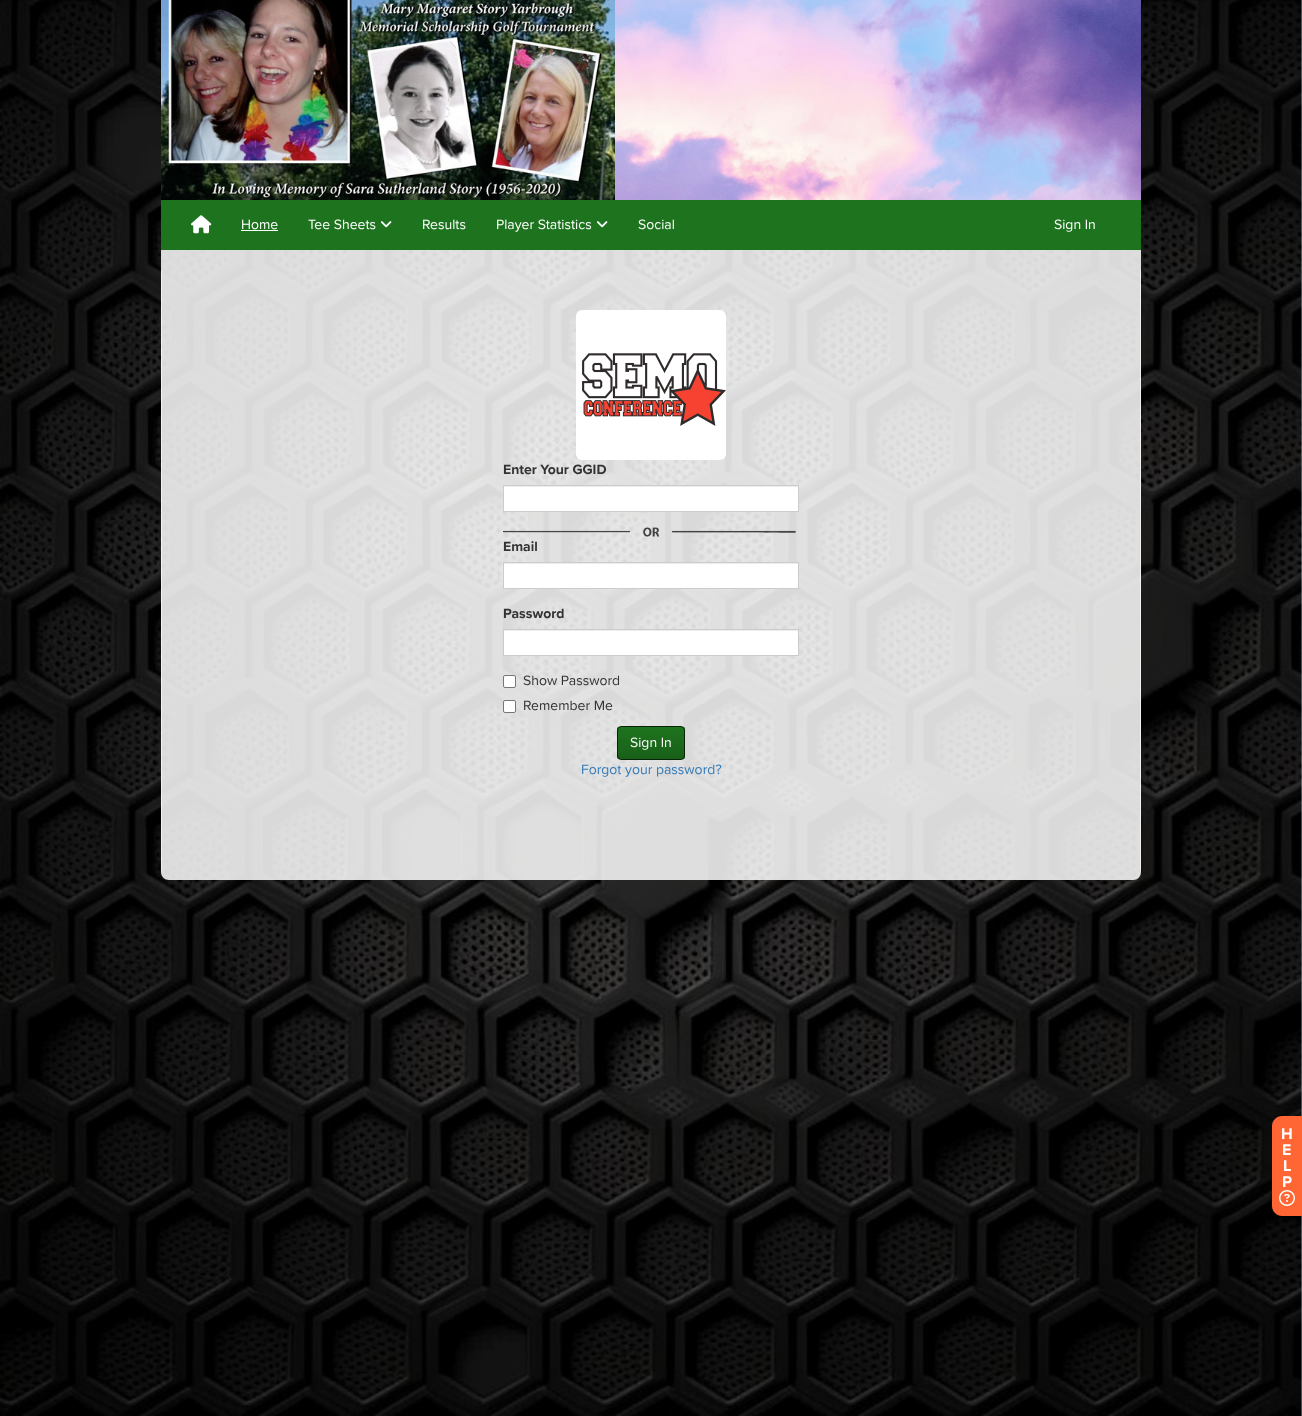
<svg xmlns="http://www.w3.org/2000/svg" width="1302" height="1416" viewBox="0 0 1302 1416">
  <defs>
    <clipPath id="clip1"><rect x="617" y="726" width="68" height="34" rx="4"/></clipPath>
    <linearGradient id="g1" gradientUnits="userSpaceOnUse" x1="651" y1="727" x2="651" y2="759"><stop offset="0" stop-color="#1e741e"/><stop offset="1" stop-color="#196019"/></linearGradient>
  </defs>
  <rect width="100%" height="100%" fill="#e7ebee"/>
  <image x="0" y="0" width="1302" height="1416" href="img1.png"/>
  <path d="M161 0H1141V872C1141 876.5 1137.5 880 1133 880H169C164.5 880 161 876.5 161 872Z" fill="#ffffff" fill-opacity="0.85"/>
  <image x="161" y="0" width="980" height="200" href="img2.png"/>
  <rect x="161" y="200" width="980" height="50" fill="#1e741e"/>
  <image x="191" y="215" width="21" height="19" href="img3.png"/>
  <text x="241" y="229" font-family="Proxima Nova" font-size="14" fill="#ffffff">Home</text>
  <rect x="241" y="230" width="37" height="1" fill="#ffffff"/>
  <text x="308" y="229" font-family="Proxima Nova" font-size="14" fill="#ffffff">Tee Sheets</text>
  <image x="381" y="221" width="11" height="7" href="img4.png"/>
  <text x="422" y="229" font-family="Proxima Nova" font-size="14" fill="#ffffff">Results</text>
  <text x="496" y="229" font-family="Proxima Nova" font-size="14" fill="#ffffff">Player Statistics</text>
  <image x="597" y="221" width="11" height="7" href="img4.png"/>
  <text x="638" y="229" font-family="Proxima Nova" font-size="14" fill="#ffffff">Social</text>
  <text x="1054" y="229" font-family="Proxima Nova" font-size="14" fill="#ffffff">Sign In</text>
  <rect x="1140" y="270" width="1" height="600" fill="#f2f2f2"/>
  <rect x="161" y="270" width="1" height="600" fill="#f2f2f2"/>
  <image x="576" y="310" width="150" height="150" href="img5.png"/>
  <text x="503" y="474" font-family="Proxima Nova" font-size="14" font-weight="bold" fill="#333333">Enter Your GGID</text>
  <rect x="504" y="487" width="294" height="24" fill="#ffffff"/>
  <rect x="504" y="486" width="294" height="1" fill="#ececec"/>
  <rect x="503.5" y="485.5" width="295" height="26" fill="none" stroke="#cccccc"/>
  <image x="503" y="527" width="294" height="10" href="img6.png"/>
  <text x="503" y="551" font-family="Proxima Nova" font-size="14" font-weight="bold" fill="#333333">Email</text>
  <rect x="504" y="564" width="294" height="24" fill="#ffffff"/>
  <rect x="504" y="563" width="294" height="1" fill="#ececec"/>
  <rect x="503.5" y="562.5" width="295" height="26" fill="none" stroke="#cccccc"/>
  <text x="503" y="618" font-family="Proxima Nova" font-size="14" font-weight="bold" fill="#333333">Password</text>
  <rect x="504" y="631" width="294" height="24" fill="#ffffff"/>
  <rect x="504" y="630" width="294" height="1" fill="#ececec"/>
  <rect x="503.5" y="629.5" width="295" height="26" fill="none" stroke="#cccccc"/>
  <rect x="503.5" y="675.5" width="12" height="12" rx="1.5" fill="#ffffff" stroke="#767676"/>
  <text x="523" y="685" font-family="Proxima Nova" font-size="14" fill="#333333">Show Password</text>
  <rect x="503.5" y="700.5" width="12" height="12" rx="1.5" fill="#ffffff" stroke="#767676"/>
  <text x="523" y="710" font-family="Proxima Nova" font-size="14" fill="#333333">Remember Me</text>
  <g clip-path="url(#clip1)">
    <rect x="617" y="727" width="68" height="32" fill="url(#g1)"/>
  </g>
  <rect x="617.5" y="726.5" width="67" height="33" rx="3.5" fill="none" stroke="#092309"/>
  <text x="630" y="747" font-family="Proxima Nova" font-size="14" fill="#ffffff">Sign In</text>
  <text x="581" y="774" font-family="Proxima Nova" font-size="14" fill="#337ab7">Forgot your password?</text>
  <path d="M1282 1116H1302V1216H1282C1276.5 1216 1272 1211.5 1272 1206V1126C1272 1120.5 1276.5 1116 1282 1116Z" fill="#ff6633"/>
  <text x="1281" y="1139" font-family="Proxima Nova" font-size="16" font-weight="bold" fill="#ffffff">H</text>
  <text x="1282" y="1155" font-family="Proxima Nova" font-size="16" font-weight="bold" fill="#ffffff">E</text>
  <text x="1283" y="1171" font-family="Proxima Nova" font-size="16" font-weight="bold" fill="#ffffff">L</text>
  <text x="1282" y="1187" font-family="Proxima Nova" font-size="16" font-weight="bold" fill="#ffffff">P</text>
  <image x="1279" y="1190" width="16" height="16" href="img7.png"/>
</svg>
